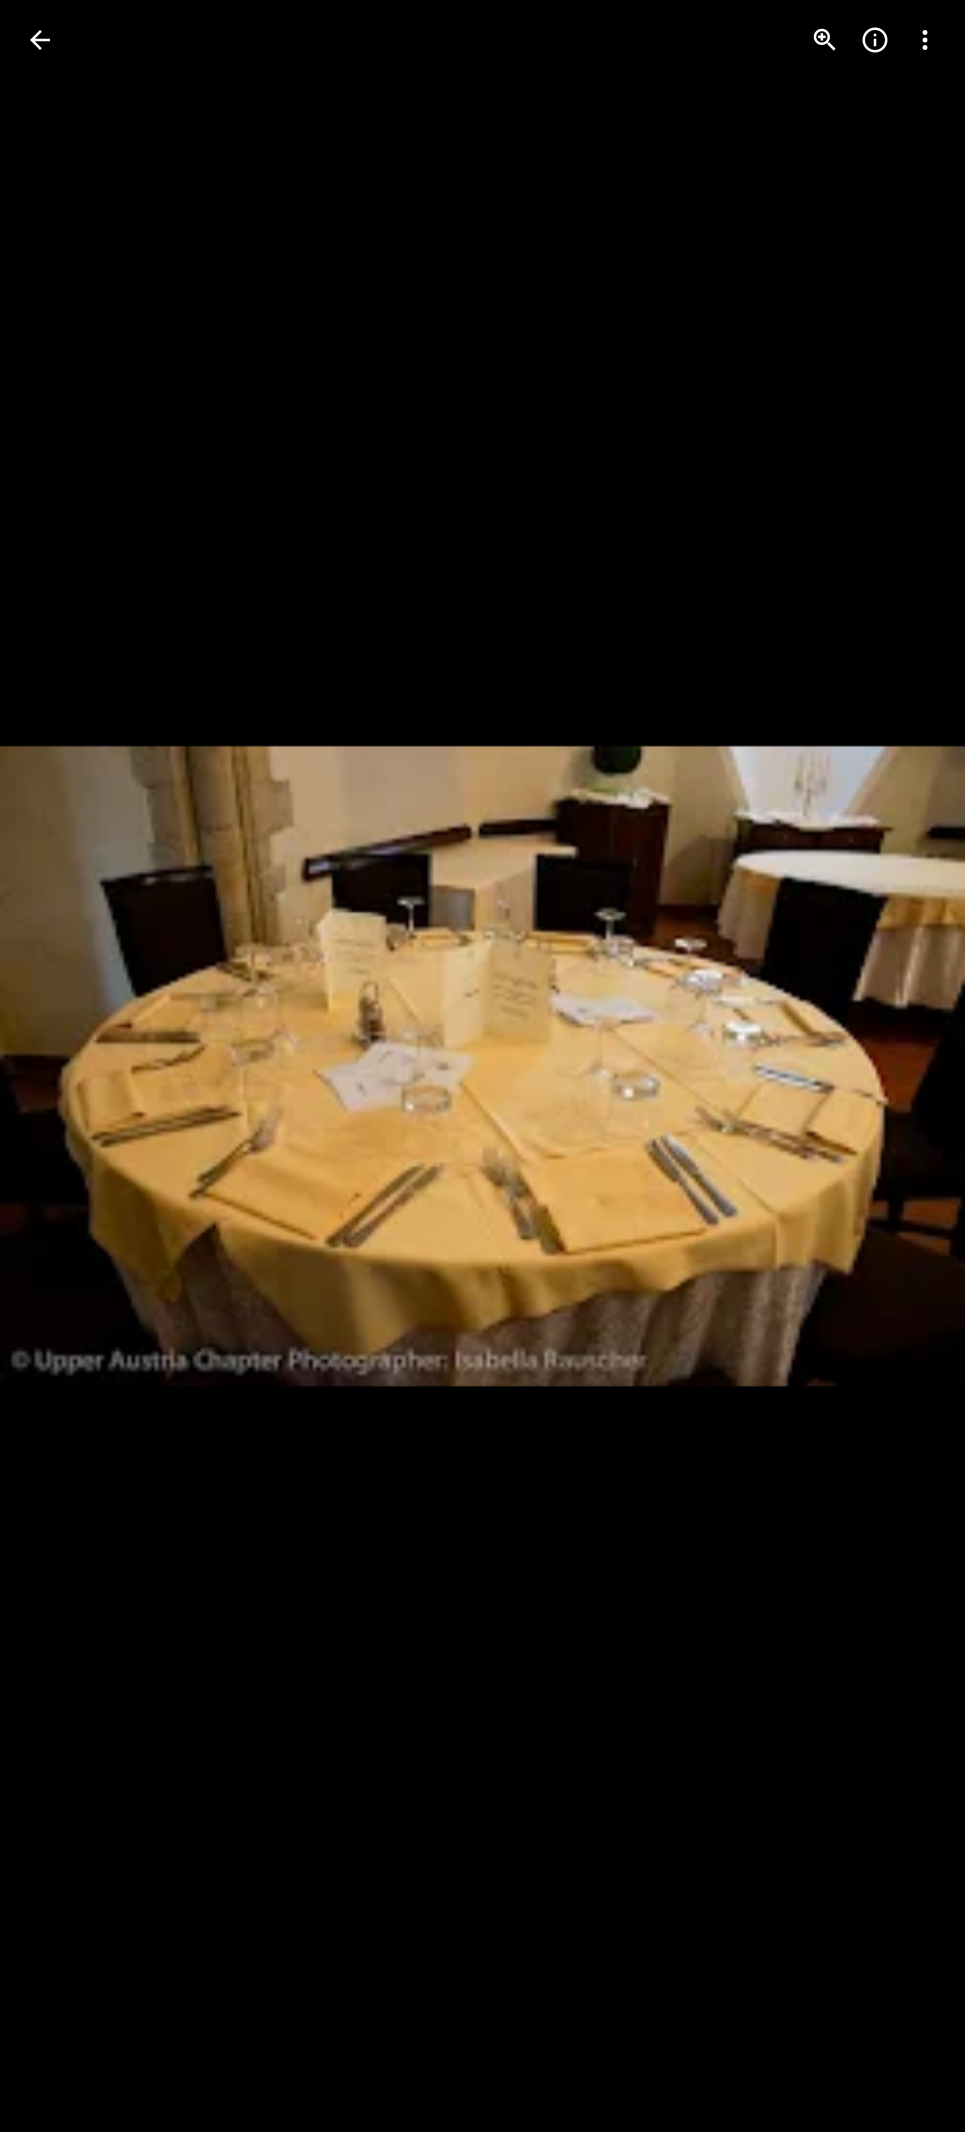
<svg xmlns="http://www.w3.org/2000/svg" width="965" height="2132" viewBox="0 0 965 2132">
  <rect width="100%" height="100%" fill="#000000"/>
  <image x="30" y="30" width="20" height="20" href="img1.png"/>
  <image x="813" y="28" width="23" height="23" href="img2.png"/>
  <image x="862" y="27" width="26" height="26" href="img3.png"/>
  <image x="922" y="30" width="6" height="20" href="img4.png"/>
  <image x="0" y="745" width="965" height="642" href="img5.png"/>
</svg>
